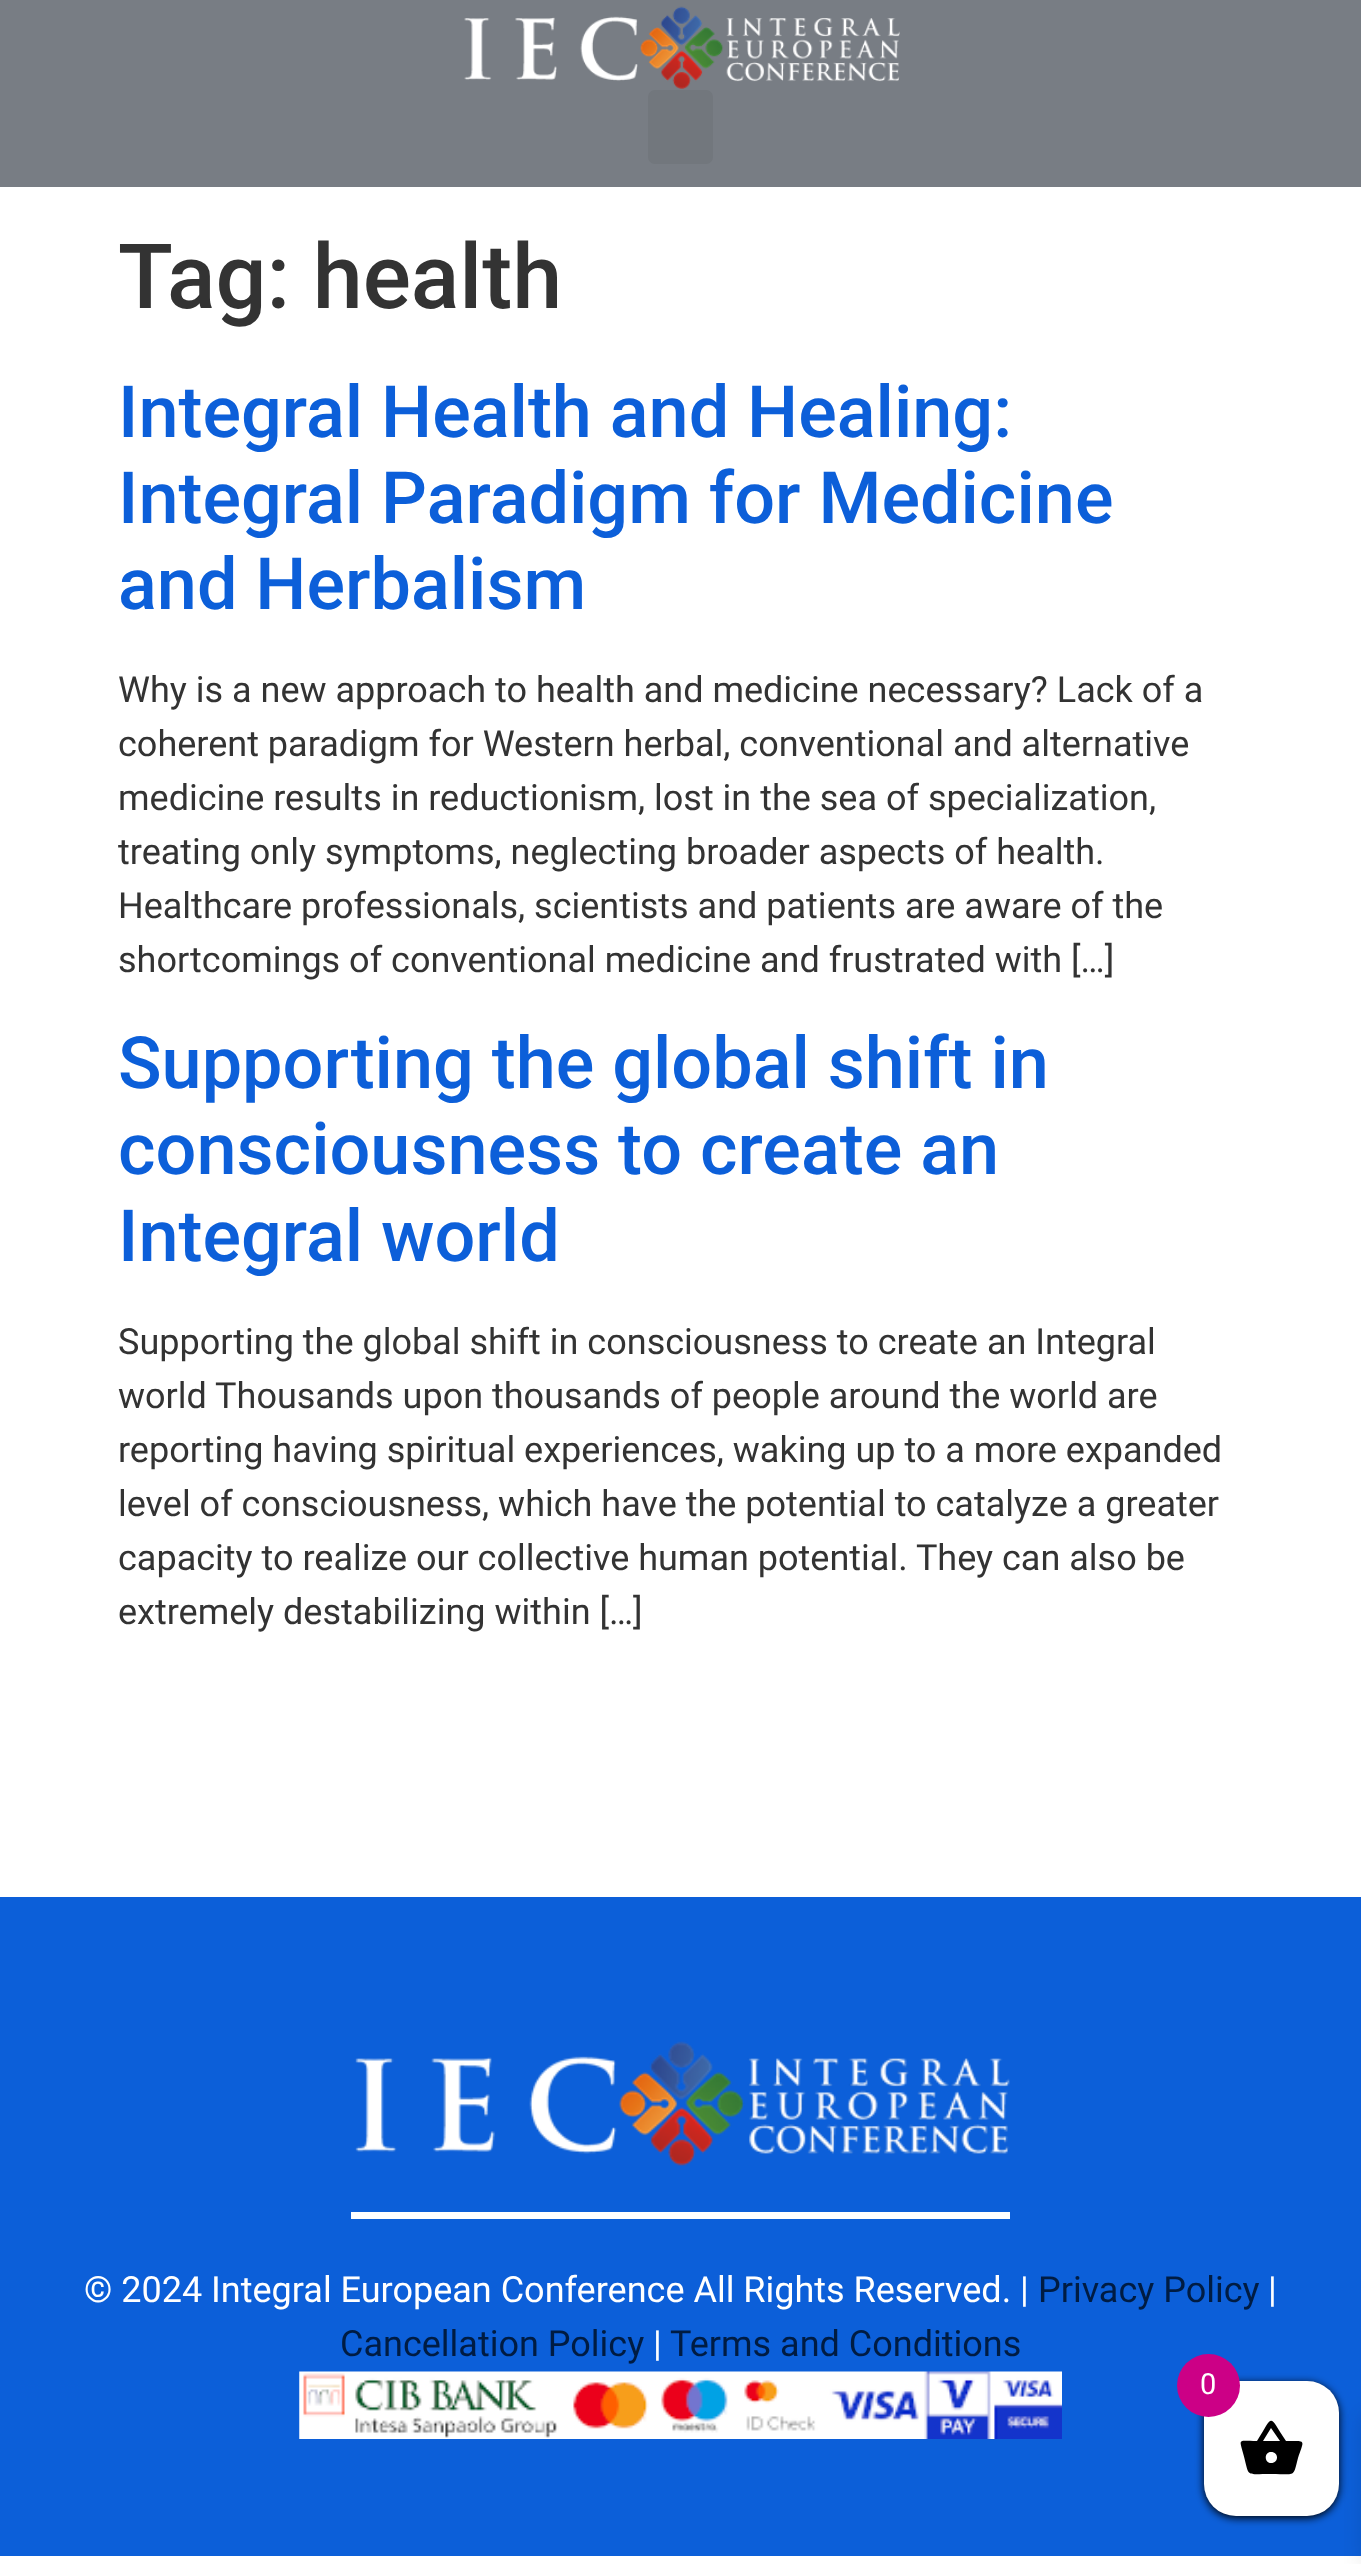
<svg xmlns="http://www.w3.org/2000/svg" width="1361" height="2564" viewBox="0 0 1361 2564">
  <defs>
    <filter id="blur1" x="-50%" y="-200%" width="200%" height="500%"><feGaussianBlur stdDeviation="4.5"/></filter>
    <filter id="blur2" x="-50%" y="-200%" width="200%" height="500%"><feGaussianBlur stdDeviation="11"/></filter>
  </defs>
  <rect width="100%" height="100%" fill="#ffffff"/>
  <rect x="0" y="0" width="1361" height="187" fill="#787d84"/>
  <image x="464" y="6" width="436" height="83" href="img1.png"/>
  <rect x="648" y="90" width="65" height="74" rx="7" fill="#72777d"/>
  <text x="118" y="308" font-family="Roboto" font-size="90" font-weight="500" fill="#333333">Tag: health</text>
  <text x="118" y="437" font-family="Roboto" font-size="72" font-weight="500" fill="#0c5fd9">Integral Health and Healing:</text>
  <text x="118" y="523" font-family="Roboto" font-size="72" font-weight="500" fill="#0c5fd9">Integral Paradigm for Medicine</text>
  <text x="118" y="609" font-family="Roboto" font-size="72" font-weight="500" fill="#0c5fd9">and Herbalism</text>
  <text x="118" y="702" font-family="Roboto" font-size="36" fill="#333333">Why is a new approach to health and medicine necessary? Lack of a</text>
  <text x="118" y="756" font-family="Roboto" font-size="36" fill="#333333">coherent paradigm for Western herbal, conventional and alternative</text>
  <text x="118" y="810" font-family="Roboto" font-size="36" fill="#333333">medicine results in reductionism, lost in the sea of specialization,</text>
  <text x="118" y="864" font-family="Roboto" font-size="36" fill="#333333">treating only symptoms, neglecting broader aspects of health.</text>
  <text x="118" y="918" font-family="Roboto" font-size="36" fill="#333333">Healthcare professionals, scientists and patients are aware of the</text>
  <text x="118" y="972" font-family="Roboto" font-size="36" fill="#333333">shortcomings of conventional medicine and frustrated with […]</text>
  <text x="118" y="1088" font-family="Roboto" font-size="72" font-weight="500" fill="#0c5fd9">Supporting the global shift in</text>
  <text x="118" y="1174" font-family="Roboto" font-size="72" font-weight="500" fill="#0c5fd9">consciousness to create an</text>
  <text x="118" y="1261" font-family="Roboto" font-size="72" font-weight="500" fill="#0c5fd9">Integral world</text>
  <text x="118" y="1354" font-family="Roboto" font-size="36" fill="#333333">Supporting the global shift in consciousness to create an Integral</text>
  <text x="118" y="1408" font-family="Roboto" font-size="36" fill="#333333">world Thousands upon thousands of people around the world are</text>
  <text x="118" y="1462" font-family="Roboto" font-size="36" fill="#333333">reporting having spiritual experiences, waking up to a more expanded</text>
  <text x="118" y="1516" font-family="Roboto" font-size="36" fill="#333333">level of consciousness, which have the potential to catalyze a greater</text>
  <text x="118" y="1570" font-family="Roboto" font-size="36" fill="#333333">capacity to realize our collective human potential. They can also be</text>
  <text x="118" y="1624" font-family="Roboto" font-size="36" fill="#333333">extremely destabilizing within […]</text>
  <rect x="0" y="1897" width="1361" height="659" fill="#0c5fd9"/>
  <image x="355" y="2041" width="655" height="125" href="img2.png"/>
  <rect x="351" y="2212" width="659" height="7" fill="#ffffff"/>
  <text x="84" y="2302" font-family="Roboto" font-size="36" fill="#ffffff">© 2024 Integral European Conference All Rights Reserved. |</text>
  <text x="1038" y="2302" font-family="Roboto" font-size="36" fill="#001c43">Privacy Policy</text>
  <text x="1268" y="2302" font-family="Roboto" font-size="36" fill="#ffffff">|</text>
  <text x="340" y="2356" font-family="Roboto" font-size="36" fill="#001c43">Cancellation Policy</text>
  <text x="653" y="2356" font-family="Roboto" font-size="36" fill="#ffffff">|</text>
  <text x="670" y="2356" font-family="Roboto" font-size="36" fill="#001c43">Terms and Conditions</text>
  <image x="299" y="2371" width="763" height="68" href="img3.png"/>
  <rect x="1204" y="2383" width="135" height="135" rx="32" fill="#000000" filter="url(#blur1)"/>
  <rect x="1361" y="2414" width="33" height="149" fill="#000000" fill-opacity="0.1" filter="url(#blur2)"/>
  <rect x="1204" y="2381" width="135" height="135" rx="32" fill="#ffffff"/>
  <circle cx="1208.5" cy="2385.5" r="31.5" fill="#cc0086"/>
  <text x="1200" y="2394" font-family="Roboto" font-size="29" fill="#ffffff">0</text>
  <path d="M1271 2463C1279 2463 1279 2452 1271 2452C1264 2452 1264 2463 1271 2463ZM1263 2441H1280L1271 2428ZM1286 2441C1307 2441 1304 2439 1298 2458C1293 2478 1296 2474 1271 2474C1244 2474 1250 2478 1243 2453C1239 2438 1238 2441 1257 2441C1274 2414 1268 2414 1286 2441Z" fill="#000000"/>
</svg>
